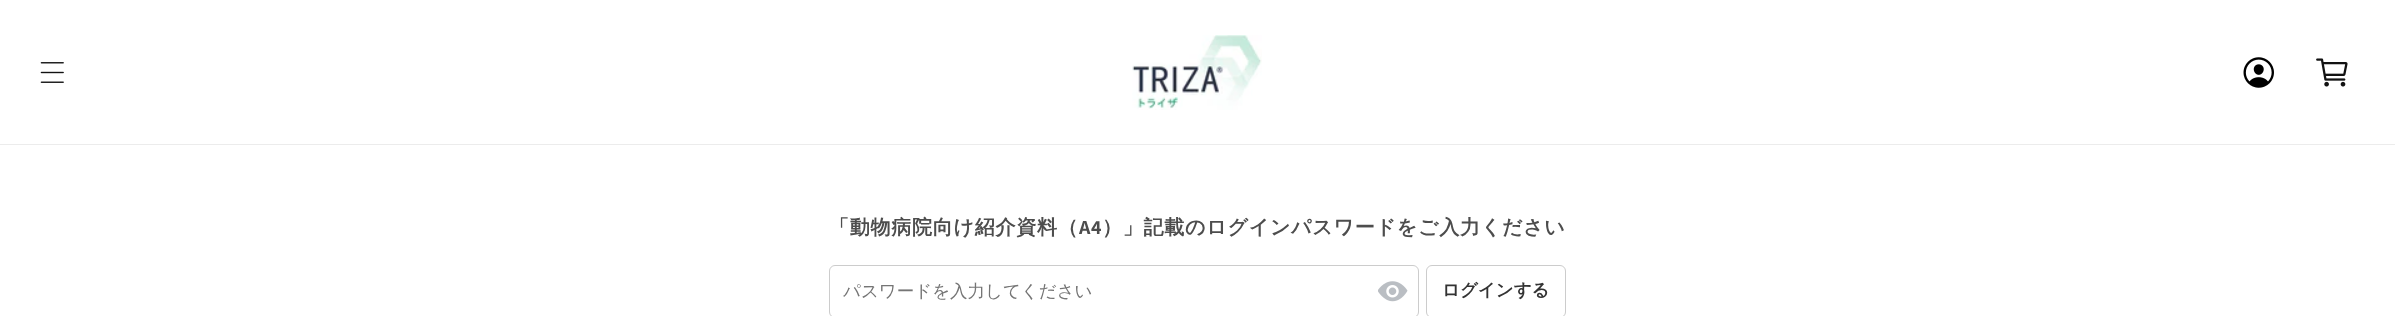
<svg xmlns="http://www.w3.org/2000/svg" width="2395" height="316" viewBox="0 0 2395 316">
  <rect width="100%" height="100%" fill="#ffffff"/>
  <rect x="0" y="144" width="2395" height="1" fill="#ececec"/>
  <image x="40" y="62" width="24" height="21" href="img1.png"/>
  <image x="1132" y="35" width="130" height="75" href="img2.png"/>
  <image x="2243" y="57" width="31" height="31" href="img3.png"/>
  <image x="2316" y="58" width="32" height="29" href="img4.png"/>
  <text x="829" y="234" font-family="WenQuanYi Zen Hei" font-size="20" font-weight="bold" letter-spacing="0.75" fill="#4d4d4d">「動物病院向け紹介資料（</text>
  <text x="1079" y="234" font-family="Assistant" font-size="20" font-weight="bold" letter-spacing="0.75" fill="#4d4d4d">A4</text>
  <text x="1102" y="234" font-family="WenQuanYi Zen Hei" font-size="20" font-weight="bold" letter-spacing="0.75" fill="#4d4d4d">）」記載のログインパスワードをご入力ください</text>
  <rect x="829.5" y="265.5" width="589" height="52" rx="5.5" fill="none" stroke="#cccccc"/>
  <text x="843" y="297" font-family="WenQuanYi Zen Hei" font-size="17.5" font-weight="500" fill="#757575">パスワードを入力してください</text>
  <image x="1378" y="281" width="30" height="21" href="img5.png"/>
  <rect x="1426.5" y="265.5" width="139" height="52" rx="5.5" fill="none" stroke="#cccccc"/>
  <text x="1442" y="296" font-family="WenQuanYi Zen Hei" font-size="17.5" font-weight="bold" fill="#333333">ログインする</text>
</svg>
